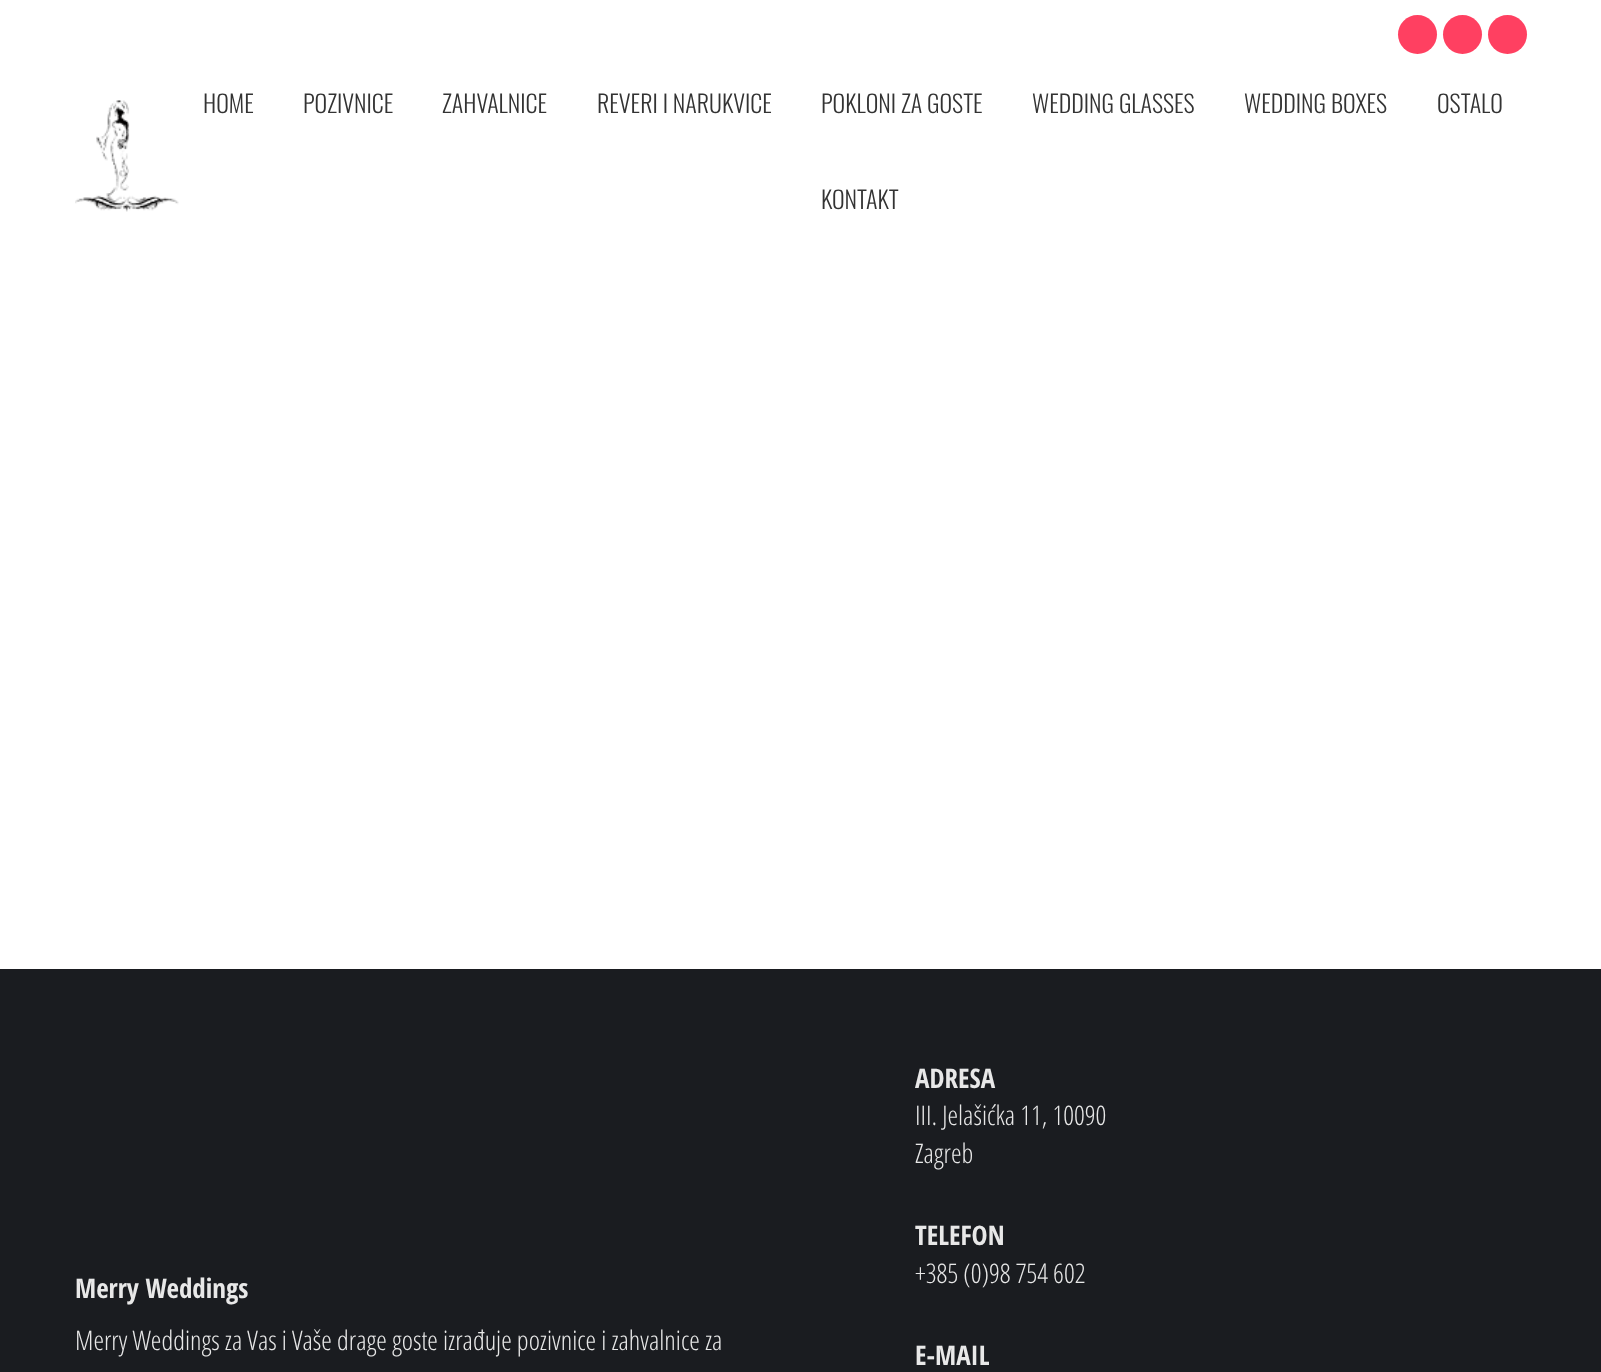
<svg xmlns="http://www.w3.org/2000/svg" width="1601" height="1372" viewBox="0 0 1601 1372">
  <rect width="100%" height="100%" fill="#ffffff"/>
  <circle cx="1417.5" cy="34.5" r="19.5" fill="#ff4061"/>
  <circle cx="1462.5" cy="34.5" r="19.5" fill="#ff4061"/>
  <circle cx="1507.5" cy="34.5" r="19.5" fill="#ff4061"/>
  <image x="75" y="100" width="104" height="112" href="img1.png"/>
  <text x="203" y="113" font-family="Oswald" font-size="24" font-weight="300" fill="#333333">HOME</text>
  <text x="303" y="113" font-family="Oswald" font-size="24" font-weight="300" fill="#333333">POZIVNICE</text>
  <text x="442" y="113" font-family="Oswald" font-size="24" font-weight="300" fill="#333333">ZAHVALNICE</text>
  <text x="597" y="113" font-family="Oswald" font-size="24" font-weight="300" fill="#333333">REVERI I NARUKVICE</text>
  <text x="821" y="113" font-family="Oswald" font-size="24" font-weight="300" fill="#333333">POKLONI ZA GOSTE</text>
  <text x="1032" y="113" font-family="Oswald" font-size="24" font-weight="300" fill="#333333">WEDDING GLASSES</text>
  <text x="1244" y="113" font-family="Oswald" font-size="24" font-weight="300" fill="#333333">WEDDING BOXES</text>
  <text x="1437" y="113" font-family="Oswald" font-size="24" font-weight="300" fill="#333333">OSTALO</text>
  <text x="821" y="209" font-family="Oswald" font-size="24" font-weight="300" fill="#333333">KONTAKT</text>
  <rect x="0" y="969" width="1601" height="403" fill="#1a1c20"/>
  <text x="75" y="1298" font-family="Open Sans Condensed" font-size="27" font-weight="bold" fill="#e8e8e8">Merry Weddings</text>
  <text x="75" y="1350" font-family="Open Sans Condensed" font-size="27" font-weight="300" fill="#e8e8e8">Merry Weddings za Vas i Vaše drage goste izrađuje pozivnice i zahvalnice za</text>
  <text x="915" y="1088" font-family="Open Sans Condensed" font-size="27" font-weight="bold" fill="#e8e8e8">ADRESA</text>
  <text x="915" y="1125" font-family="Open Sans Condensed" font-size="27" font-weight="300" fill="#e8e8e8">III. Jelašićka 11, 10090</text>
  <text x="915" y="1163" font-family="Open Sans Condensed" font-size="27" font-weight="300" fill="#e8e8e8">Zagreb</text>
  <text x="915" y="1245" font-family="Open Sans Condensed" font-size="27" font-weight="bold" fill="#e8e8e8">TELEFON</text>
  <text x="915" y="1283" font-family="Open Sans Condensed" font-size="27" font-weight="300" fill="#e8e8e8">+385 (0)98 754 602</text>
  <text x="915" y="1365" font-family="Open Sans Condensed" font-size="27" font-weight="bold" fill="#e8e8e8">E-MAIL</text>
</svg>
